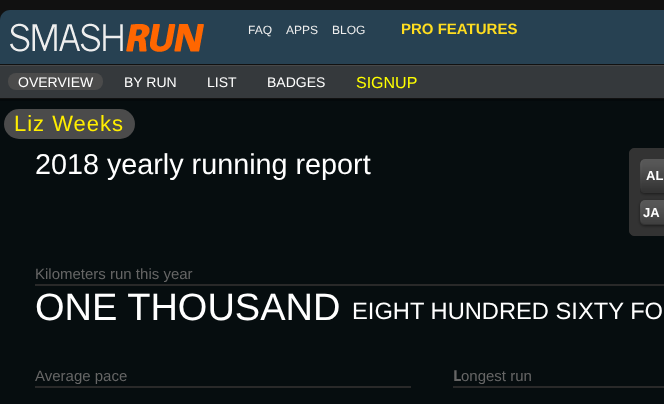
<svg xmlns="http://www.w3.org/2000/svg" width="664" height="404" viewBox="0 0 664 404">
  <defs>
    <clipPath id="clip1"><rect x="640" y="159" width="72" height="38"/></clipPath>
    <filter id="blur1" x="-50%" y="-200%" width="200%" height="500%"><feGaussianBlur stdDeviation="1.5"/></filter>
  </defs>
  <rect width="100%" height="100%" fill="#111111"/>
  <path d="M10 10H664C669.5 10 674 14.5 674 20V65H0V20C0 14.5 4.5 10 10 10Z" fill="#274152"/>
  <rect x="0" y="64" width="664" height="1" fill="#111111"/>
  <image x="10" y="23" width="194" height="29" href="img1.png"/>
  <text x="248" y="34" font-family="Liberation Sans" font-size="12" fill="#eeeeee">FAQ</text>
  <text x="286" y="34" font-family="Liberation Sans" font-size="12" fill="#eeeeee">APPS</text>
  <text x="332" y="34" font-family="Liberation Sans" font-size="12" fill="#eeeeee">BLOG</text>
  <text x="401" y="34" font-family="Liberation Sans" font-size="15" font-weight="bold" fill="#ffdd20">PRO FEATURES</text>
  <rect x="0" y="66" width="664" height="32" fill="#35393c"/>
  <rect x="0" y="65" width="664" height="1" fill="#484848"/>
  <rect x="8" y="73" width="95" height="17" rx="8" fill="#4b4b4b"/>
  <text x="18" y="87" font-family="Liberation Sans" font-size="14" fill="#ffffff">OVERVIEW</text>
  <text x="124" y="87" font-family="Liberation Sans" font-size="14" fill="#ffffff">BY RUN</text>
  <text x="207" y="87" font-family="Liberation Sans" font-size="14" fill="#ffffff">LIST</text>
  <text x="267" y="87" font-family="Liberation Sans" font-size="14" fill="#ffffff">BADGES</text>
  <text x="356" y="88" font-family="Liberation Sans" font-size="16" fill="#ffff00">SIGNUP</text>
  <rect x="0" y="99" width="664" height="2" fill="#04090b"/>
  <rect x="0" y="101" width="664" height="303" fill="#060d0f"/>
  <rect x="4" y="109" width="131" height="30" rx="15" fill="#4b4b4b"/>
  <text x="14" y="131" font-family="Liberation Sans" font-size="22" letter-spacing="1" fill="#ffee00">Liz Weeks</text>
  <text x="35" y="174" font-family="Liberation Sans" font-size="28.75" fill="#ffffff">2018 yearly running report</text>
  <rect x="629.5" y="148.5" width="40" height="87" rx="4.5" fill="#333333" stroke="#333333"/>
  <g clip-path="url(#clip1)">
    <rect x="640" y="160" width="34" height="34" rx="5" fill="#000000" fill-opacity="0.5" filter="url(#blur1)"/>
  </g>
  <rect x="640" y="159" width="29" height="34" rx="5" fill="#222222"/>
  <image x="640" y="159" width="24" height="34" href="img2.png"/>
  <path d="M645 159H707C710 159 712 161 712 164V188C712 191 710 193 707 193H645C642 193 640 191 640 188V164C640 161 642 159 645 159ZM645 159H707C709 159 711 161 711 164V188C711 190 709 192 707 192H645C642 192 640 190 640 188V164C640 161 642 159 645 159Z" fill="#333333" fill-rule="evenodd"/>
  <text x="646" y="180" font-family="Liberation Sans" font-size="13" font-weight="bold" fill="#ffffff">AL</text>
  <rect x="640" y="201" width="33" height="25" rx="5" fill="#000000" fill-opacity="0.5" filter="url(#blur1)"/>
  <rect x="640" y="200" width="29" height="25" rx="5" fill="#222222"/>
  <image x="640" y="200" width="24" height="25" href="img3.png"/>
  <path d="M645 200H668C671 200 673 202 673 205V220C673 223 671 225 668 225H645C642 225 640 223 640 220V205C640 202 642 200 645 200ZM645 200H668C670 200 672 202 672 205V220C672 222 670 224 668 224H645C642 224 640 222 640 220V205C640 202 642 200 645 200Z" fill="#333333" fill-rule="evenodd"/>
  <text x="643" y="217" font-family="Liberation Sans" font-size="13" font-weight="bold" fill="#ffffff">JA</text>
  <text x="35" y="279" font-family="Liberation Sans" font-size="15" fill="#666666">Kilometers run this year</text>
  <rect x="35" y="284" width="629" height="2" fill="#292929"/>
  <text x="35" y="320" font-family="Liberation Sans" font-size="38" fill="#ffffff">ONE THOUSAND</text>
  <text x="352" y="319" font-family="Liberation Sans" font-size="23.7" fill="#ffffff">EIGHT HUNDRED SIXTY FO</text>
  <text x="35" y="381" font-family="Liberation Sans" font-size="15" fill="#666666">Average pace</text>
  <rect x="35" y="386" width="376" height="2" fill="#292929"/>
  <text x="453" y="381" font-family="Noto Sans" font-size="15" font-weight="bold" fill="#666666">L</text>
  <text x="461" y="381" font-family="Liberation Sans" font-size="15" fill="#666666">ongest run</text>
  <rect x="453" y="386" width="211" height="2" fill="#292929"/>
</svg>
